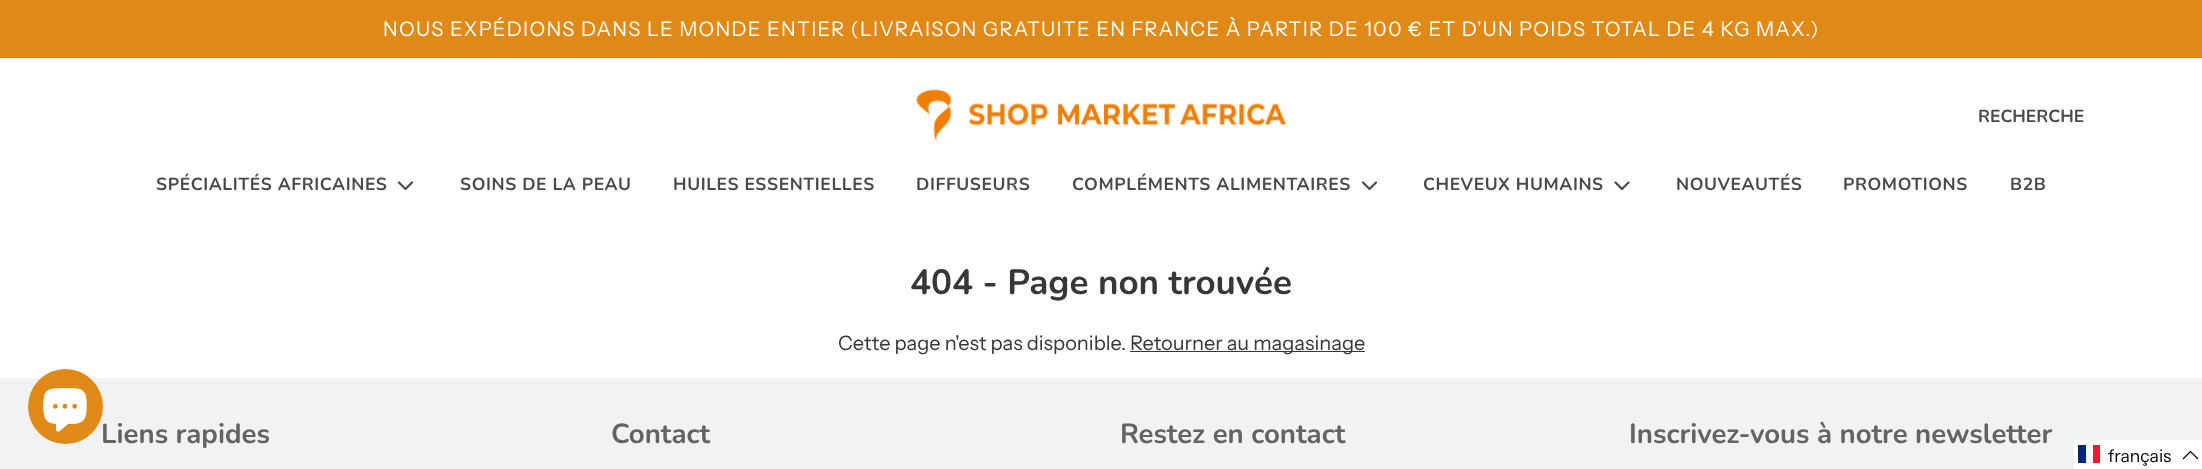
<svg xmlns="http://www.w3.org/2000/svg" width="2202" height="469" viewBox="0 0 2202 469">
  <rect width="100%" height="100%" fill="#ffffff"/>
  <rect x="0" y="0" width="2202" height="58" fill="#e08917"/>
  <text x="383" y="36" font-family="Instrument Sans" font-size="20" letter-spacing="1.25" fill="#ffffff">NOUS EXPÉDIONS DANS LE MONDE ENTIER (LIVRAISON GRATUITE EN FRANCE À PARTIR DE 100 € ET D'UN POIDS TOTAL DE 4 KG MAX.)</text>
  <image x="916" y="89" width="371" height="54" href="img1.png"/>
  <text x="1978" y="122" font-family="Nunito" font-size="17.5" font-weight="bold" fill="#4a4a4a">RECHERCHE</text>
  <text x="156" y="190" font-family="Nunito" font-size="17.5" font-weight="bold" letter-spacing="0.6" fill="#4a4a4a">SPÉCIALITÉS AFRICAINES</text>
  <path d="M399 182.5L405.5 189L412 182.5" fill="none" stroke="#4a4a4a" stroke-width="2.2" stroke-linecap="round" stroke-linejoin="round"/>
  <text x="460" y="190" font-family="Nunito" font-size="17.5" font-weight="bold" letter-spacing="0.6" fill="#4a4a4a">SOINS DE LA PEAU</text>
  <text x="673" y="190" font-family="Nunito" font-size="17.5" font-weight="bold" letter-spacing="0.6" fill="#4a4a4a">HUILES ESSENTIELLES</text>
  <text x="916" y="190" font-family="Nunito" font-size="17.5" font-weight="bold" letter-spacing="0.6" fill="#4a4a4a">DIFFUSEURS</text>
  <text x="1072" y="190" font-family="Nunito" font-size="17.5" font-weight="bold" letter-spacing="0.6" fill="#4a4a4a">COMPLÉMENTS ALIMENTAIRES</text>
  <path d="M1363 182.5L1369.5 189L1376 182.5" fill="none" stroke="#4a4a4a" stroke-width="2.2" stroke-linecap="round" stroke-linejoin="round"/>
  <text x="1423" y="190" font-family="Nunito" font-size="17.5" font-weight="bold" letter-spacing="0.6" fill="#4a4a4a">CHEVEUX HUMAINS</text>
  <path d="M1615.5 182.5L1622 189L1628.5 182.5" fill="none" stroke="#4a4a4a" stroke-width="2.2" stroke-linecap="round" stroke-linejoin="round"/>
  <text x="1676" y="190" font-family="Nunito" font-size="17.5" font-weight="bold" letter-spacing="0.6" fill="#4a4a4a">NOUVEAUTÉS</text>
  <text x="1843" y="190" font-family="Nunito" font-size="17.5" font-weight="bold" letter-spacing="0.6" fill="#4a4a4a">PROMOTIONS</text>
  <text x="2010" y="190" font-family="Nunito" font-size="17.5" font-weight="bold" letter-spacing="0.6" fill="#4a4a4a">B2B</text>
  <text x="910" y="294" font-family="Nunito" font-size="35" font-weight="bold" fill="#373737">404 - Page non trouvée</text>
  <text x="838" y="350" font-family="Instrument Sans" font-size="20" fill="#373737">Cette page n'est pas disponible.</text>
  <rect x="1130" y="351" width="235" height="1" fill="#373737"/>
  <text x="1130" y="350" font-family="Instrument Sans" font-size="20" fill="#373737">Retourner au magasinage</text>
  <rect x="0" y="378" width="2202" height="91" fill="#f2f2f2"/>
  <circle cx="65.5" cy="406.5" r="37.5" fill="#e08917"/>
  <image x="43" y="388" width="44" height="44" href="img2.png"/>
  <text x="101" y="443" font-family="Nunito" font-size="27.6" font-weight="bold" fill="#636363">Liens rapides</text>
  <text x="611" y="443" font-family="Nunito" font-size="27.6" font-weight="bold" fill="#636363">Contact</text>
  <text x="1120" y="443" font-family="Nunito" font-size="27.6" font-weight="bold" fill="#636363">Restez en contact</text>
  <text x="1629" y="443" font-family="Nunito" font-size="27.6" font-weight="bold" fill="#636363">Inscrivez-vous à notre newsletter</text>
  <rect x="2074" y="440" width="128" height="29" fill="#ffffff"/>
  <rect x="2078" y="445" width="8" height="18" fill="#00267f"/>
  <rect x="2093" y="445" width="7" height="18" fill="#f31830"/>
  <text x="2108" y="462" font-family="Instrument Sans" font-size="17.5" fill="#000000">français</text>
  <path d="M2198 459L2190.5 451.5L2183 459" fill="none" stroke="#000000" stroke-width="1.2"/>
</svg>
